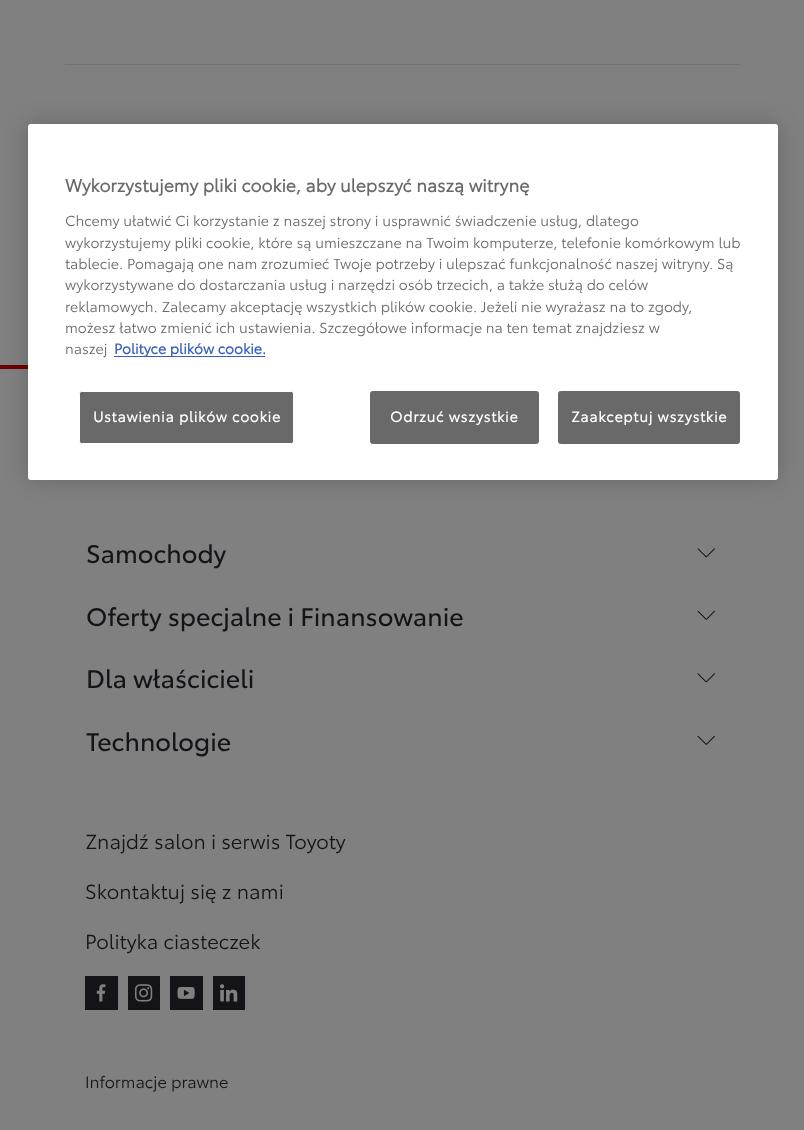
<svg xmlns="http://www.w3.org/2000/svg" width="804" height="1130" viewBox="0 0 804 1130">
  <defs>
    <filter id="blur1" x="-50%" y="-200%" width="200%" height="500%"><feGaussianBlur stdDeviation="11"/></filter>
  </defs>
  <rect width="100%" height="100%" fill="#808080"/>
  <rect x="65" y="64" width="675" height="1" fill="#727272"/>
  <rect x="0" y="365" width="28" height="4" fill="#6a0303"/>
  <rect x="28" y="124" width="750" height="356" rx="3" fill="#000000" fill-opacity="0.2" filter="url(#blur1)"/>
  <rect x="28" y="124" width="750" height="356" rx="3" fill="#ffffff"/>
  <text x="65" y="192" font-family="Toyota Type" font-size="17.5" font-weight="bold" fill="#696969">Wykorzystujemy pliki cookie, aby ulepszyć naszą witrynę</text>
  <text x="65" y="226" font-family="Toyota Type" font-size="14.25" fill="#696969">Chcemy ułatwić Ci korzystanie z naszej strony i usprawnić świadczenie usług, dlatego</text>
  <text x="65" y="248" font-family="Toyota Type" font-size="14.25" fill="#696969">wykorzystujemy pliki cookie, które są umieszczane na Twoim komputerze, telefonie komórkowym lub</text>
  <text x="65" y="269" font-family="Toyota Type" font-size="14.25" fill="#696969">tablecie. Pomagają one nam zrozumieć Twoje potrzeby i ulepszać funkcjonalność naszej witryny. Są</text>
  <text x="65" y="290" font-family="Toyota Type" font-size="14.25" fill="#696969">wykorzystywane do dostarczania usług i narzędzi osób trzecich, a także służą do celów</text>
  <text x="65" y="312" font-family="Toyota Type" font-size="14.25" fill="#696969">reklamowych. Zalecamy akceptację wszystkich plików cookie. Jeżeli nie wyrażasz na to zgody,</text>
  <text x="65" y="333" font-family="Toyota Type" font-size="14.25" fill="#696969">możesz łatwo zmienić ich ustawienia. Szczegółowe informacje na ten temat znajdziesz w</text>
  <text x="65" y="354" font-family="Toyota Type" font-size="14.25" fill="#696969">naszej</text>
  <rect x="114" y="356" width="151" height="1" fill="#3860be"/>
  <text x="114" y="354" font-family="Toyota Type" font-size="14.25" font-weight="bold" fill="#3860be">Polityce plików cookie.</text>
  <rect x="79.5" y="391.5" width="214" height="52" rx="2" fill="#696969" stroke="#ffffff"/>
  <text x="93" y="422" font-family="Toyota Type" font-size="14.25" font-weight="bold" letter-spacing="0.75" fill="#ffffff">Ustawienia plików cookie</text>
  <rect x="370.5" y="391.5" width="168" height="52" rx="2" fill="#696969" stroke="#696969"/>
  <text x="390" y="422" font-family="Toyota Type" font-size="14.25" font-weight="bold" letter-spacing="0.75" fill="#ffffff">Odrzuć wszystkie</text>
  <rect x="558.5" y="391.5" width="181" height="52" rx="2" fill="#696969" stroke="#696969"/>
  <text x="571" y="422" font-family="Toyota Type" font-size="14.25" font-weight="bold" letter-spacing="0.75" fill="#ffffff">Zaakceptuj wszystkie</text>
  <text x="86" y="563" font-family="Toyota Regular" font-size="25" fill="#141418">Samochody</text>
  <image x="697" y="548" width="18" height="10" href="img1.png"/>
  <text x="86" y="626" font-family="Toyota Regular" font-size="25" fill="#141418">Oferty specjalne i Finansowanie</text>
  <image x="697" y="610" width="18" height="10" href="img2.png"/>
  <text x="86" y="688" font-family="Toyota Regular" font-size="25" fill="#141418">Dla właścicieli</text>
  <image x="697" y="673" width="18" height="10" href="img1.png"/>
  <text x="86" y="751" font-family="Toyota Regular" font-size="25" fill="#141418">Technologie</text>
  <image x="697" y="735" width="18" height="10" href="img2.png"/>
  <text x="85" y="849" font-family="Toyota Type" font-size="20" fill="#141418">Znajdź salon i serwis Toyoty</text>
  <text x="85" y="899" font-family="Toyota Type" font-size="20" fill="#141418">Skontaktuj się z nami</text>
  <text x="85" y="949" font-family="Toyota Type" font-size="20" fill="#141418">Polityka ciasteczek</text>
  <rect x="85" y="976" width="33" height="34" fill="#141418"/>
  <image x="96" y="984" width="10" height="18" href="img3.png"/>
  <rect x="128" y="976" width="32" height="34" fill="#141418"/>
  <image x="134" y="984" width="19" height="18" href="img4.png"/>
  <rect x="170" y="976" width="33" height="34" fill="#141418"/>
  <image x="177" y="987" width="18" height="12" href="img5.png"/>
  <rect x="213" y="976" width="32" height="34" fill="#141418"/>
  <image x="220" y="984" width="18" height="18" href="img6.png"/>
  <text x="85" y="1088" font-family="Toyota Type" font-size="16.25" fill="#141418">Informacje prawne</text>
</svg>
